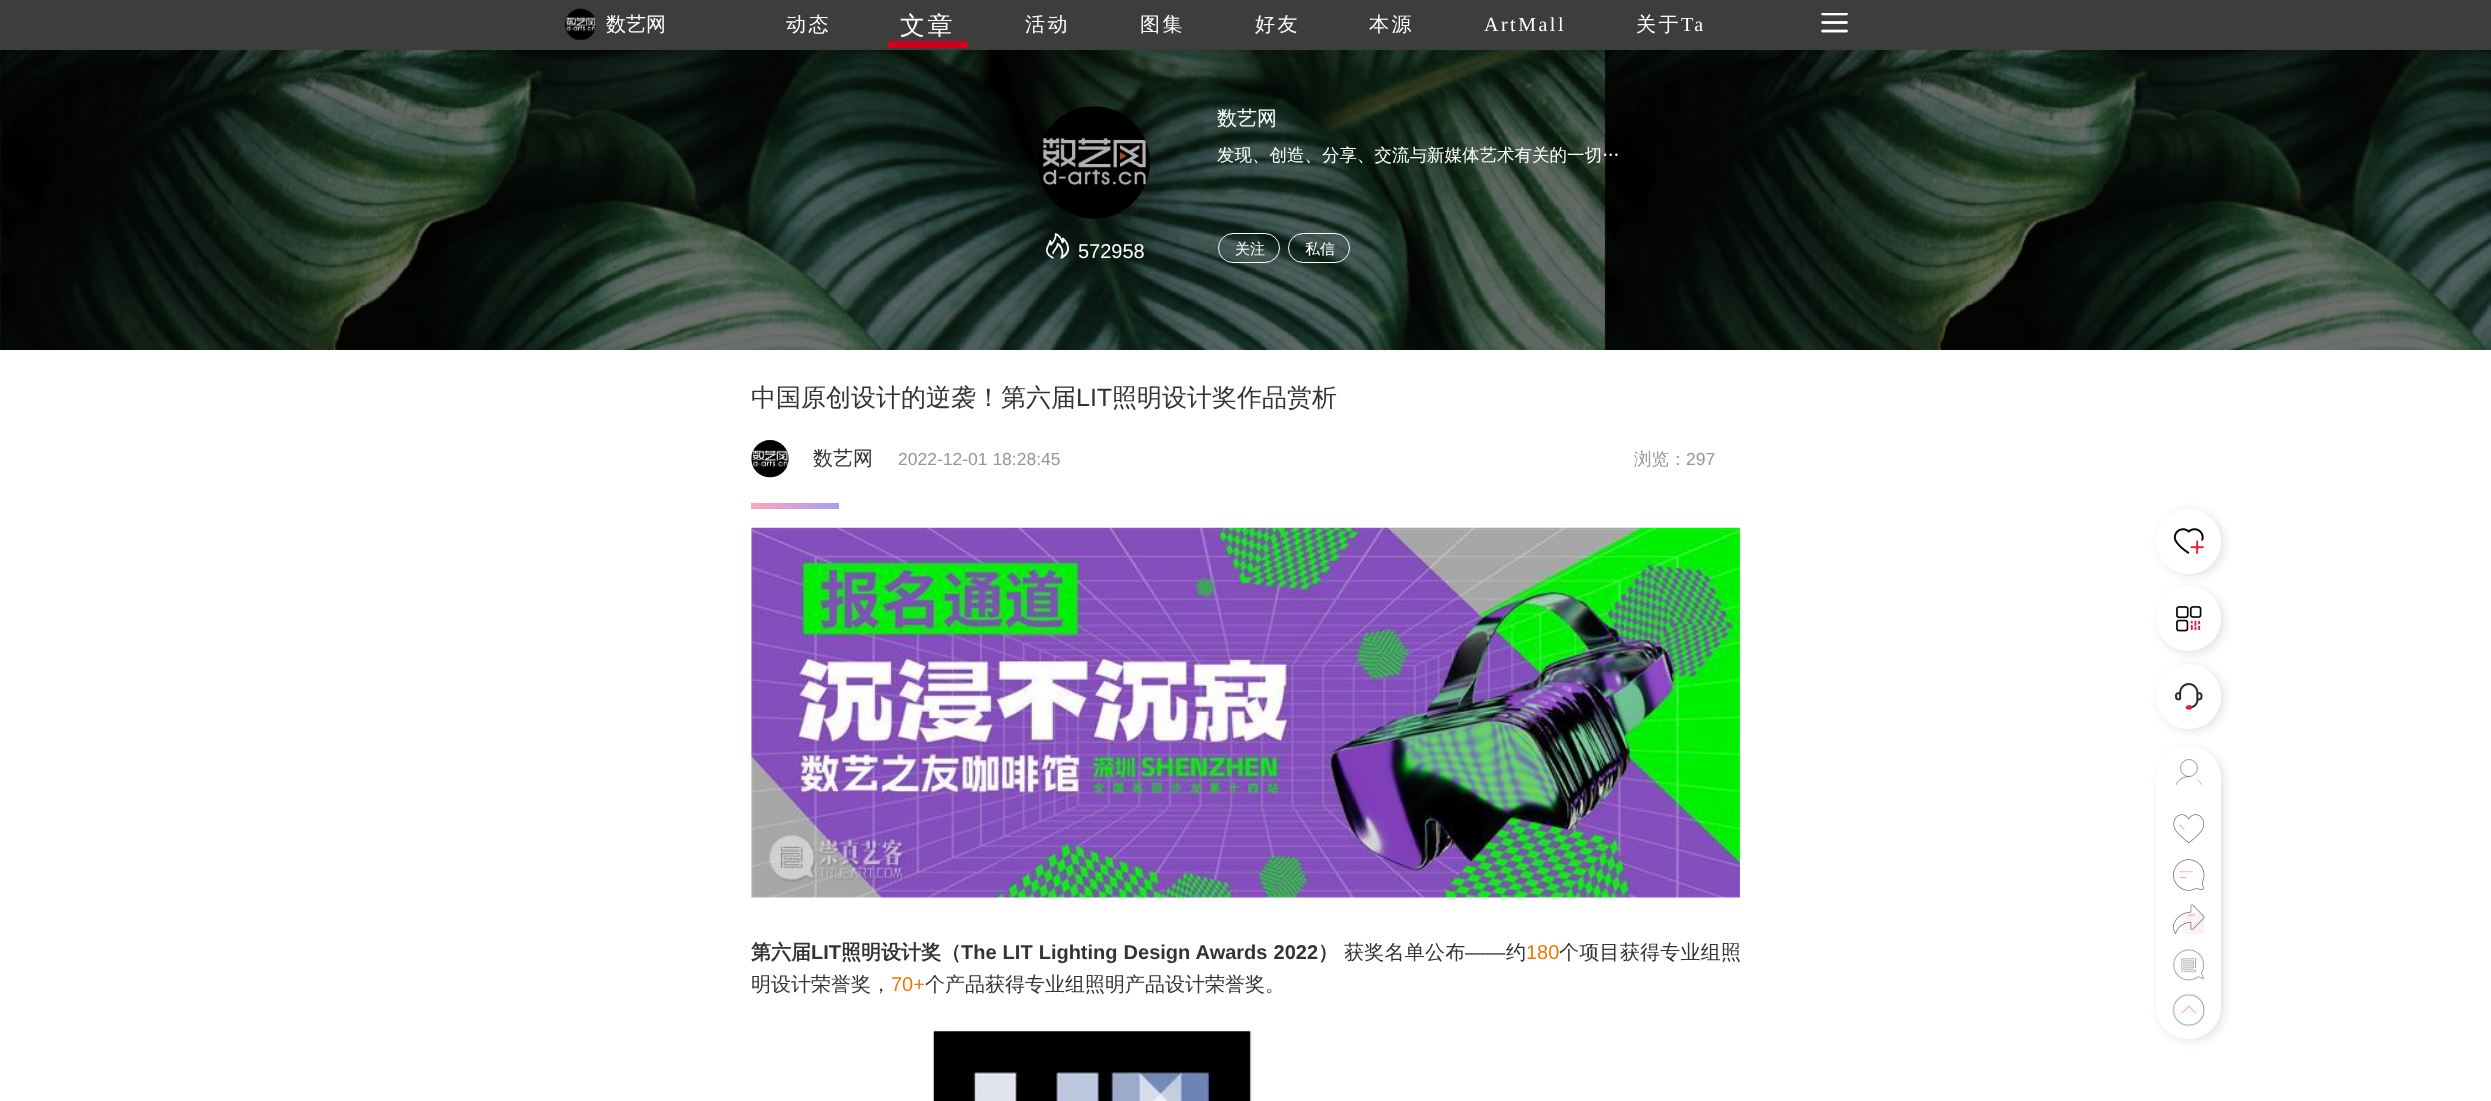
(async () => {
    const canvas = document.querySelector("canvas");
    canvas.width = 2491;
    canvas.height = 1101;
    const context = canvas.getContext("2d");
    context.miterLimit = 4;
    context.fontKerning = "normal";
    function write(s, x, y, font, color) {
        context.font = font;
        context.fillStyle = color;
        context.fillText(s, x, y);
    }
    function block(x, y, w, h, color) {
        context.fillStyle = color;
        context.fillRect(x, y, w, h);
    }
    function card(x, y, w, h, r, color) {
        context.fillStyle = color;
        context.beginPath();
        context.roundRect(x, y, w, h, r);
        context.fill();
    }
    async function photo(src, x, y, w, h) {
        const img = new Image();
        img.src = src;
        await img.decode();
        context.drawImage(img, x, y, w, h);
    }
    let gradient;

    block(0, 0, 2491, 1101, "rgb(255, 255, 255)");
    block(0, 0, 2491, 50, "rgb(61, 61, 61)");
    await photo("media/1.png", 565, 8, 31, 32);
    write("数艺网", 606, 31, "500 20px WenQuanYi Zen Hei", "rgb(255, 255, 255)");
    context.letterSpacing = "2.5px";
    write("动态", 786, 31, "500 20px WenQuanYi Zen Hei", "rgb(255, 255, 255)");
    write("文章", 900, 34, "500 25px WenQuanYi Zen Hei", "rgb(255, 255, 255)");
    block(888, 41, 80, 7, "rgb(208, 2, 27)");
    write("活动", 1025, 31, "500 20px WenQuanYi Zen Hei", "rgb(255, 255, 255)");
    write("图集", 1140, 31, "500 20px WenQuanYi Zen Hei", "rgb(255, 255, 255)");
    write("好友", 1255, 31, "500 20px WenQuanYi Zen Hei", "rgb(255, 255, 255)");
    write("本源", 1369, 31, "500 20px WenQuanYi Zen Hei", "rgb(255, 255, 255)");
    write("ArtMall", 1484, 31, "20px Liberation Serif", "rgb(255, 255, 255)");
    write("关于", 1636, 31, "500 20px WenQuanYi Zen Hei", "rgb(255, 255, 255)");
    write("Ta", 1681, 31, "20px Liberation Serif", "rgb(255, 255, 255)");
    await photo("media/2.png", 1821, 13, 27, 20);
    context.save();
    context.beginPath();
    context.moveTo(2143, 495);
    context.lineTo(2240, 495);
    context.lineTo(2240, 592);
    context.lineTo(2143, 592);
    context.closePath();
    context.moveTo(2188.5, 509);
    context.bezierCurveTo(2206.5, 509, 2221, 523.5, 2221, 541.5);
    context.bezierCurveTo(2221, 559.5, 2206.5, 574, 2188.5, 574);
    context.bezierCurveTo(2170.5, 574, 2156, 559.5, 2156, 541.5);
    context.bezierCurveTo(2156, 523.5, 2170.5, 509, 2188.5, 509);
    context.closePath();
    context.clip("evenodd");
    context.fillStyle = "rgba(105, 105, 105, 0.2)";
    context.filter = "blur(5px)";
    context.beginPath();
    context.roundRect(2159, 511, 65, 65, 32.5);
    context.fill();
    context.filter = "none";
    context.restore();
    context.fillStyle = "rgba(255, 255, 255, 0.8)";
    context.beginPath();
    context.arc(2188.5, 541.5, 32.5, 0, Math.PI * 2);
    context.fill();
    await photo("media/3.png", 2173, 528, 31, 26);
    context.save();
    context.beginPath();
    context.moveTo(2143, 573);
    context.lineTo(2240, 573);
    context.lineTo(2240, 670);
    context.lineTo(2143, 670);
    context.closePath();
    context.moveTo(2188.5, 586);
    context.bezierCurveTo(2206.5, 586, 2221, 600.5, 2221, 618.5);
    context.bezierCurveTo(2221, 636.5, 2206.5, 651, 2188.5, 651);
    context.bezierCurveTo(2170.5, 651, 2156, 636.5, 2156, 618.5);
    context.bezierCurveTo(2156, 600.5, 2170.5, 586, 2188.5, 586);
    context.closePath();
    context.clip("evenodd");
    context.fillStyle = "rgba(105, 105, 105, 0.2)";
    context.filter = "blur(5px)";
    context.beginPath();
    context.roundRect(2159, 589, 65, 65, 32.5);
    context.fill();
    context.filter = "none";
    context.restore();
    context.beginPath();
    context.arc(2188.5, 618.5, 32.5, 0, Math.PI * 2);
    context.fill();
    await photo("media/4.png", 2176, 606, 26, 26);
    context.save();
    context.beginPath();
    context.moveTo(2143, 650);
    context.lineTo(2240, 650);
    context.lineTo(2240, 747);
    context.lineTo(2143, 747);
    context.closePath();
    context.moveTo(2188.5, 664);
    context.bezierCurveTo(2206.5, 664, 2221, 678.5, 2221, 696.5);
    context.bezierCurveTo(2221, 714.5, 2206.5, 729, 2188.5, 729);
    context.bezierCurveTo(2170.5, 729, 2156, 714.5, 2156, 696.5);
    context.bezierCurveTo(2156, 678.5, 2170.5, 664, 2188.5, 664);
    context.closePath();
    context.clip("evenodd");
    context.fillStyle = "rgba(105, 105, 105, 0.2)";
    context.filter = "blur(5px)";
    context.beginPath();
    context.roundRect(2159, 666, 65, 65, 32.5);
    context.fill();
    context.filter = "none";
    context.restore();
    context.beginPath();
    context.arc(2188.5, 696.5, 32.5, 0, Math.PI * 2);
    context.fill();
    await photo("media/5.png", 2175, 683, 28, 27);
    context.save();
    context.beginPath();
    context.moveTo(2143, 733);
    context.lineTo(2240, 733);
    context.lineTo(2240, 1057);
    context.lineTo(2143, 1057);
    context.closePath();
    context.moveTo(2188.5, 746);
    context.bezierCurveTo(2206.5, 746, 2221, 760.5, 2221, 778.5);
    context.lineTo(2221, 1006.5);
    context.bezierCurveTo(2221, 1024.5, 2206.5, 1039, 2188.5, 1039);
    context.bezierCurveTo(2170.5, 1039, 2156, 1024.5, 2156, 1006.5);
    context.lineTo(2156, 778.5);
    context.bezierCurveTo(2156, 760.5, 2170.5, 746, 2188.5, 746);
    context.closePath();
    context.clip("evenodd");
    context.fillStyle = "rgba(105, 105, 105, 0.2)";
    context.filter = "blur(5px)";
    context.beginPath();
    context.roundRect(2159, 749, 65, 292, 32.5);
    context.fill();
    context.filter = "none";
    context.restore();
    card(2156, 746, 65, 293, 32.5, "rgba(255, 255, 255, 0.8)");
    context.beginPath();
    context.arc(2189, 768, 8.5, 0, Math.PI * 2);
    context.strokeStyle = "rgb(51, 51, 51)";
    context.lineWidth = 0.5;
    context.stroke();
    context.save();
    context.beginPath();
    context.roundRect(2173, 759, 32, 32, 16);
    context.clip();
    context.beginPath();
    context.moveTo(2189, 776.5);
    context.bezierCurveTo(2181, 776.5, 2175, 782.5, 2175, 790);
    context.lineCap = "round";
    context.lineJoin = "round";
    context.stroke();
    context.beginPath();
    context.moveTo(2202.5, 790);
    context.bezierCurveTo(2202.5, 786, 2201, 782.5, 2198, 780);
    context.strokeStyle = "rgb(240, 71, 97)";
    context.stroke();
    context.restore();
    await photo("media/6.png", 2173, 814, 31, 29);
    await photo("media/7.png", 2173, 859, 32, 32);
    await photo("media/8.png", 2173, 904, 32, 30);
    await photo("media/9.png", 2173, 949, 32, 32);
    await photo("media/10.png", 2172, 993, 33, 34);
    await photo("media/11.png", 0, 50, 2491, 300);
    await photo("media/12.png", 1038, 106, 112, 113);
    await photo("media/13.png", 1046, 233, 23, 26);
    context.letterSpacing = "0px";
    write("572958", 1078, 258, "20px Liberation Sans", "rgb(255, 255, 255)");
    write("数艺网", 1217, 125, "500 20px WenQuanYi Zen Hei", "rgb(255, 255, 255)");
    write("发现、创造、分享、交流与新媒体艺术有关的一切…", 1217, 161, "500 17.5px WenQuanYi Zen Hei", "rgb(255, 255, 255)");
    context.beginPath();
    context.roundRect(1218.5, 233.5, 61, 29, 14.5);
    context.strokeStyle = "rgb(255, 255, 255)";
    context.lineWidth = 1;
    context.stroke();
    write("关注", 1235, 254, "500 15px WenQuanYi Zen Hei", "rgb(255, 255, 255)");
    context.beginPath();
    context.roundRect(1288.5, 233.5, 61, 29, 14.5);
    context.stroke();
    write("私信", 1305, 254, "500 15px WenQuanYi Zen Hei", "rgb(255, 255, 255)");
    write("中国原创设计的逆袭！第六届", 751, 406, "500 25px WenQuanYi Zen Hei", "rgb(51, 51, 51)");
    write("LIT", 1076, 406, "25px Liberation Sans", "rgb(51, 51, 51)");
    write("照明设计奖作品赏析", 1112, 406, "500 25px WenQuanYi Zen Hei", "rgb(51, 51, 51)");
    await photo("media/14.png", 751, 440, 38, 38);
    write("数艺网", 813, 465, "500 20px WenQuanYi Zen Hei", "rgb(51, 51, 51)");
    write("2022-12-01 18:28:45", 898, 465, "17.5px Liberation Sans", "rgb(150, 150, 150)");
    write("浏览：", 1634, 465, "500 17.5px WenQuanYi Zen Hei", "rgb(150, 150, 150)");
    write("297", 1686, 465, "17.5px Liberation Sans", "rgb(150, 150, 150)");
    gradient = context.createLinearGradient(751, 506, 839, 506);
    gradient.addColorStop(0, "rgb(255, 166, 187)");
    gradient.addColorStop(1, "rgb(165, 158, 244)");
    context.fillStyle = gradient;
    context.fillRect(751, 503, 88, 6);
    await photo("media/15.png", 751, 527, 989, 371);
    write("第六届", 751, 959, "bold 20px WenQuanYi Zen Hei", "rgb(51, 51, 51)");
    write("LIT", 811, 959, "bold 20px Liberation Sans", "rgb(51, 51, 51)");
    write("照明设计奖（", 841, 959, "bold 20px WenQuanYi Zen Hei", "rgb(51, 51, 51)");
    context.wordSpacing = "0.5px";
    write("The LIT Lighting Design Awards 2022", 961, 959, "bold 20px Liberation Sans", "rgb(51, 51, 51)");
    context.wordSpacing = "0px";
    write("）", 1318, 959, "bold 20px WenQuanYi Zen Hei", "rgb(51, 51, 51)");
    context.letterSpacing = "0.25px";
    write("获奖名单公布", 1344, 959, "500 20px WenQuanYi Zen Hei", "rgb(51, 51, 51)");
    write("——", 1465, 959, "20px Liberation Sans", "rgb(51, 51, 51)");
    write("约", 1506, 959, "500 20px WenQuanYi Zen Hei", "rgb(51, 51, 51)");
    context.letterSpacing = "0px";
    write("180", 1526, 959, "20px Liberation Sans", "rgb(238, 120, 0)");
    context.letterSpacing = "0.25px";
    write("个项目获得专业组照", 1559, 959, "500 20px WenQuanYi Zen Hei", "rgb(51, 51, 51)");
    context.letterSpacing = "0px";
    write("明设计荣誉奖，", 751, 991, "500 20px WenQuanYi Zen Hei", "rgb(51, 51, 51)");
    write("70+", 891, 991, "20px Liberation Sans", "rgb(238, 120, 0)");
    write("个产品获得专业组照明产品设计荣誉奖。", 925, 991, "500 20px WenQuanYi Zen Hei", "rgb(51, 51, 51)");
    await photo("media/16.png", 933, 1031, 319, 70);
})();
